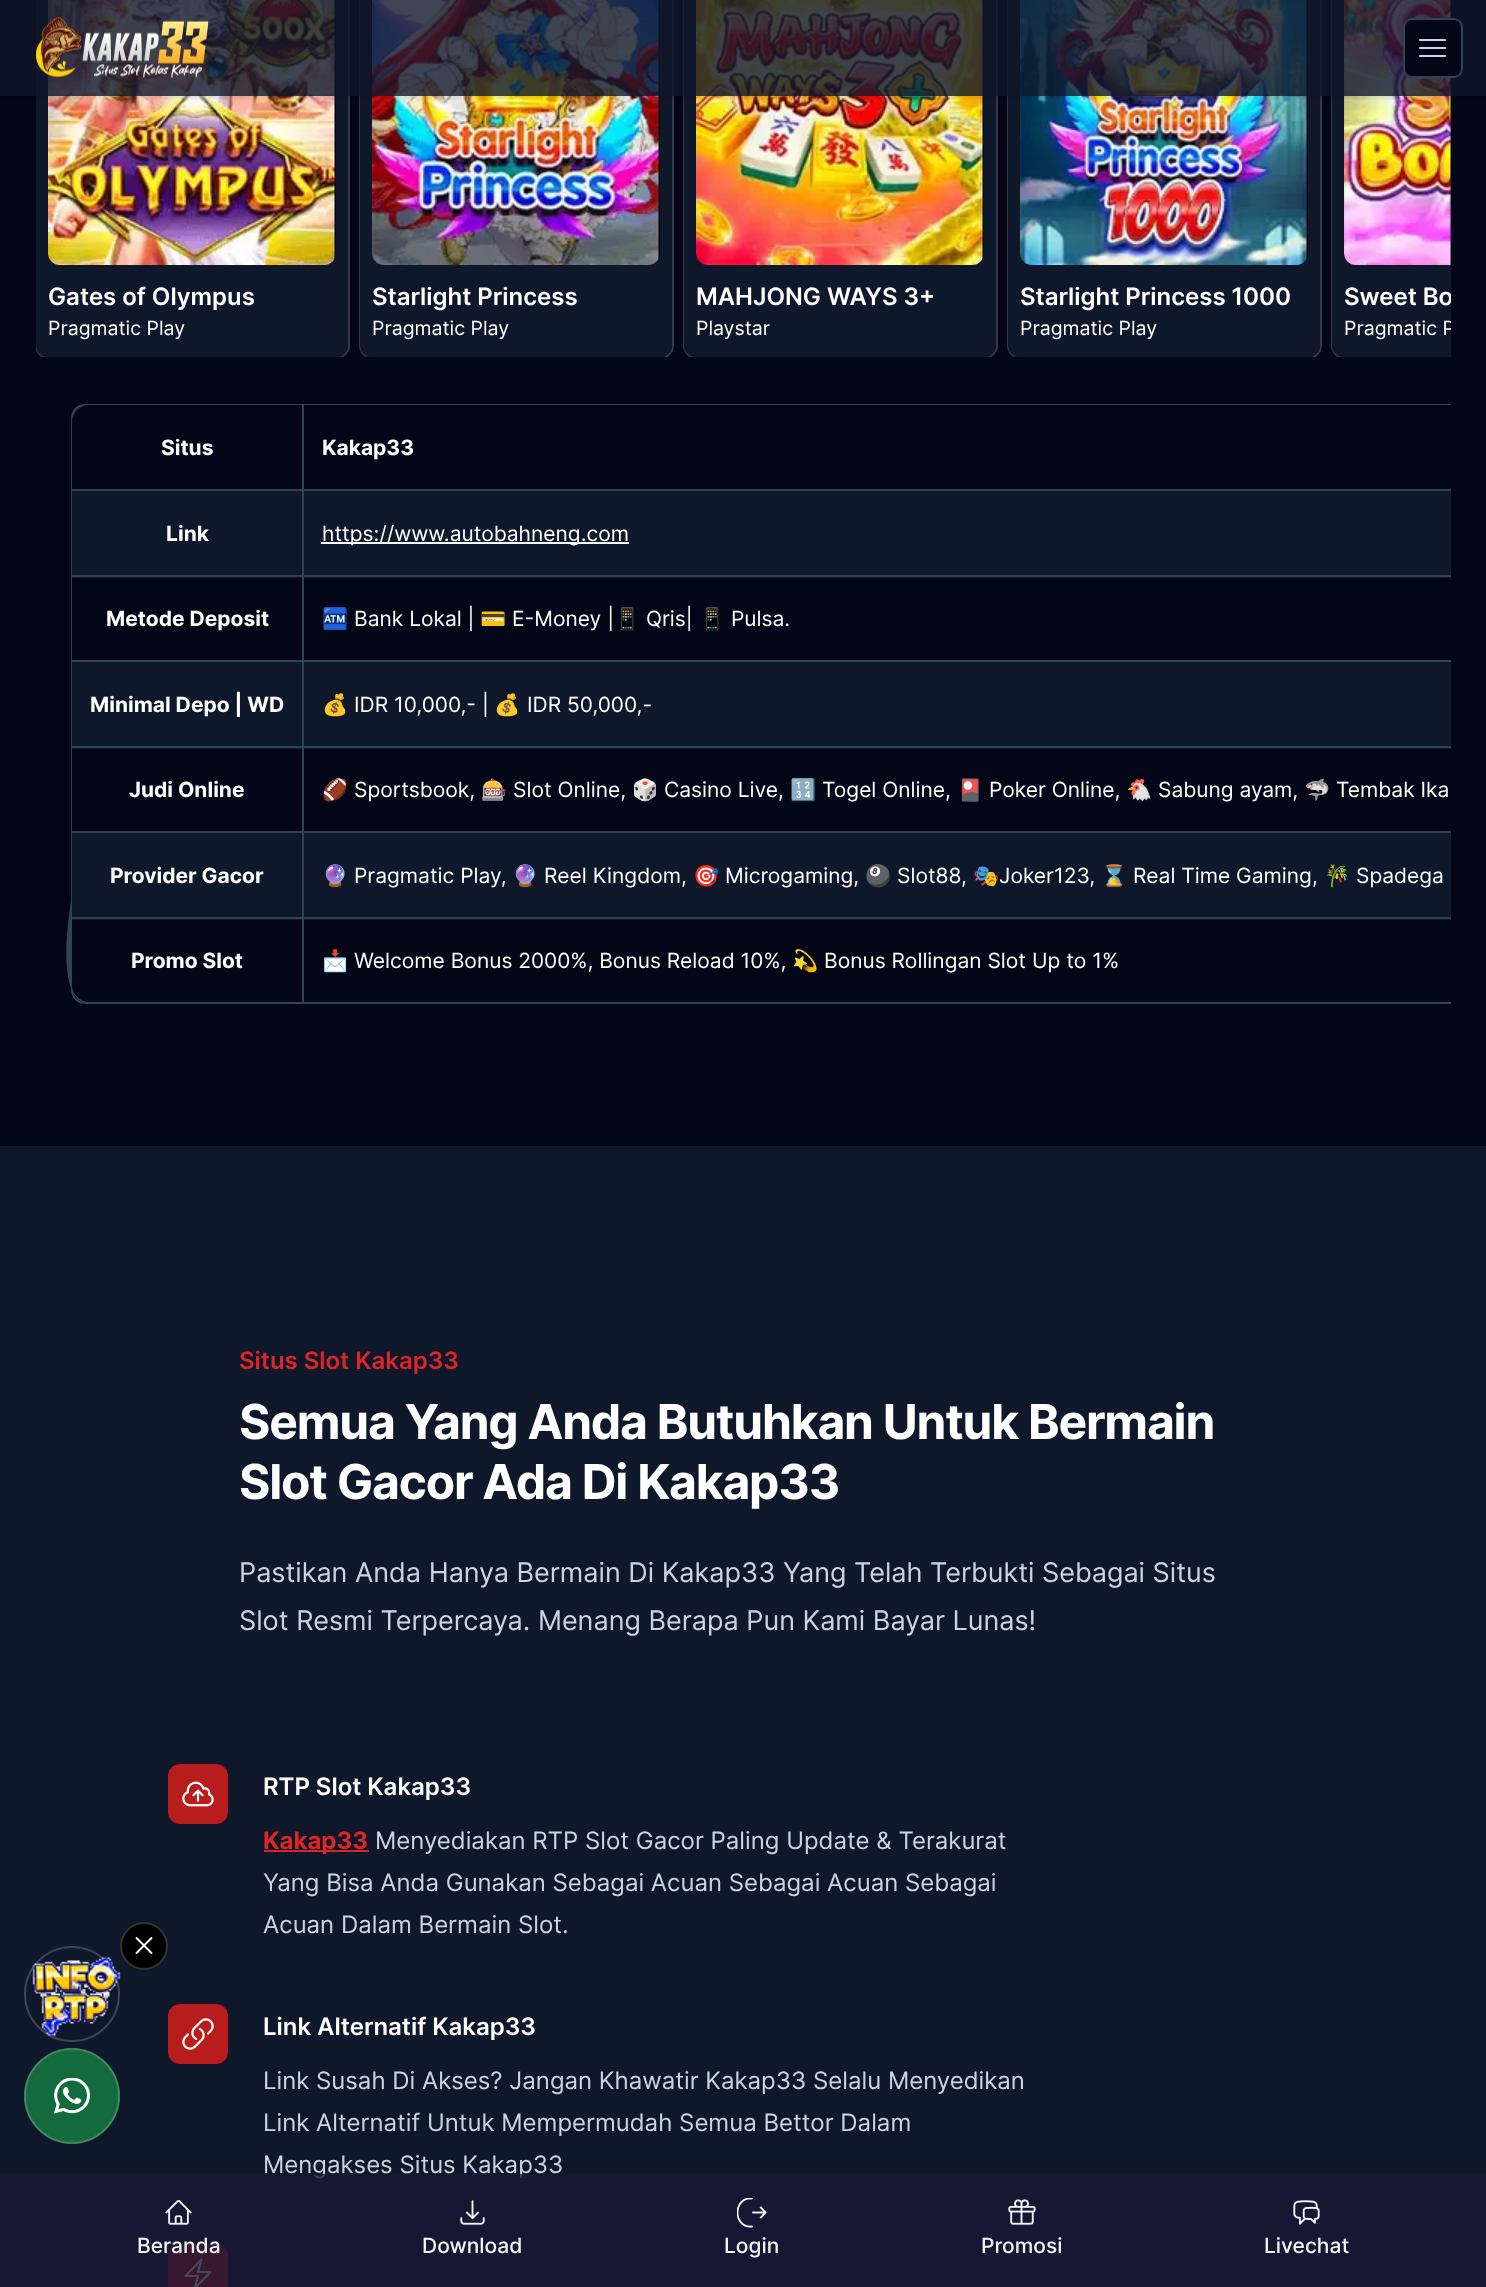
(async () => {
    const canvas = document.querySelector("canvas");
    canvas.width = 1486;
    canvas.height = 2287;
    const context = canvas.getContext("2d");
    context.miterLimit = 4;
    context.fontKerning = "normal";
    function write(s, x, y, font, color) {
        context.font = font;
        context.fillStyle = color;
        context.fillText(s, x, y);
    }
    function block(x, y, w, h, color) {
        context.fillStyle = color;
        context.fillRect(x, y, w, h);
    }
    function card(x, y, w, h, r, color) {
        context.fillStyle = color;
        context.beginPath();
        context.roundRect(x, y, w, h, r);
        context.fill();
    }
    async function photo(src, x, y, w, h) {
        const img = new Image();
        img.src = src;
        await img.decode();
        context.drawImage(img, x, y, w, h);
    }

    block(0, 0, 1486, 2287, "rgb(2, 6, 23)");
    context.save();
    context.beginPath();
    context.rect(36, 0, 1415, 357);
    context.clip();
    context.beginPath();
    context.roundRect(36, -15, 313, 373, 13);
    context.strokeStyle = "rgb(53, 56, 69)";
    context.lineWidth = 2;
    context.stroke();
    context.restore();
    card(36, -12, 312, 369, 12, "rgb(15, 23, 42)");
    await photo("media/2.png", 48, 0, 288, 265);
    context.save();
    context.beginPath();
    context.rect(36, 0, 1415, 357);
    context.clip();
    context.beginPath();
    context.roundRect(360, -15, 313, 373, 13);
    context.strokeStyle = "rgb(53, 56, 69)";
    context.lineWidth = 2;
    context.stroke();
    context.restore();
    card(360, -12, 312, 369, 12, "rgb(15, 23, 42)");
    await photo("media/3.png", 372, 0, 288, 265);
    context.save();
    context.beginPath();
    context.rect(36, 0, 1415, 357);
    context.clip();
    context.beginPath();
    context.roundRect(684, -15, 313, 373, 13);
    context.strokeStyle = "rgb(53, 56, 69)";
    context.lineWidth = 2;
    context.stroke();
    context.restore();
    card(684, -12, 312, 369, 12, "rgb(15, 23, 42)");
    await photo("media/4.png", 696, 0, 288, 265);
    context.save();
    context.beginPath();
    context.rect(36, 0, 1415, 357);
    context.clip();
    context.beginPath();
    context.roundRect(1008, -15, 313, 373, 13);
    context.strokeStyle = "rgb(53, 56, 69)";
    context.lineWidth = 2;
    context.stroke();
    context.restore();
    card(1008, -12, 312, 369, 12, "rgb(15, 23, 42)");
    await photo("media/5.png", 1020, 0, 288, 265);
    context.save();
    context.beginPath();
    context.rect(36, 0, 1415, 357);
    context.clip();
    context.beginPath();
    context.roundRect(1332, -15, 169, 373, 13);
    context.strokeStyle = "rgb(53, 56, 69)";
    context.lineWidth = 2;
    context.stroke();
    context.restore();
    context.beginPath();
    context.moveTo(1344, -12);
    context.lineTo(1451, -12);
    context.lineTo(1451, 357);
    context.lineTo(1344, 357);
    context.bezierCurveTo(1337.5, 357, 1332, 351.5, 1332, 345);
    context.lineTo(1332, 0);
    context.bezierCurveTo(1332, -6.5, 1337.5, -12, 1344, -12);
    context.closePath();
    context.fill();
    await photo("media/6.png", 1344, 0, 107, 265);
    context.save();
    context.beginPath();
    context.rect(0, 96, 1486, 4);
    context.clip();
    context.fillStyle = "rgba(0, 0, 0, 0.1)";
    context.filter = "blur(2px)";
    context.beginPath();
    context.rect(0, 2, 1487, 96);
    context.fill();
    context.filter = "none";
    context.restore();
    block(0, 0, 1486, 96, "rgba(15, 23, 42, 0.8)");
    await photo("media/1.png", 36, 17, 173, 61);
    context.fillStyle = "rgb(2, 6, 23)";
    context.beginPath();
    context.roundRect(1404, 19, 58, 58, 8);
    context.fill();
    context.strokeStyle = "rgb(51, 65, 85)";
    context.lineWidth = 2;
    context.stroke();
    context.beginPath();
    context.moveTo(1420, 40);
    context.lineTo(1445, 40);
    context.moveTo(1420, 48);
    context.lineTo(1445, 48);
    context.moveTo(1420, 56);
    context.lineTo(1445, 56);
    context.strokeStyle = "rgb(203, 213, 225)";
    context.lineWidth = 2.2;
    context.lineCap = "round";
    context.lineJoin = "round";
    context.stroke();
    write("Gates of Olympus", 48, 305, "600 24px Inter", "rgb(255, 255, 255)");
    write("Pragmatic Play", 48, 335, "19.5px Inter", "rgb(255, 255, 255)");
    write("Starlight Princess", 372, 305, "600 24px Inter", "rgb(255, 255, 255)");
    write("Pragmatic Play", 372, 335, "19.5px Inter", "rgb(255, 255, 255)");
    write("MAHJONG WAYS 3+", 696, 305, "600 24px Inter", "rgb(255, 255, 255)");
    write("Playstar", 696, 335, "19.5px Inter", "rgb(255, 255, 255)");
    write("Starlight Princess 1000", 1020, 305, "600 24px Inter", "rgb(255, 255, 255)");
    write("Pragmatic Play", 1020, 335, "19.5px Inter", "rgb(255, 255, 255)");
    context.save();
    context.beginPath();
    context.rect(1344, 278, 107, 67);
    context.clip();
    write("Sweet Bo", 1344, 305, "600 24px Inter", "rgb(255, 255, 255)");
    write("Pragmatic P", 1344, 335, "19.5px Inter", "rgb(255, 255, 255)");
    context.restore();
    context.save();
    context.beginPath();
    context.rect(36, 393, 1415, 621);
    context.clip();
    context.beginPath();
    context.roundRect(72, 405, 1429, 598, 13);
    context.strokeStyle = "rgb(51, 65, 85)";
    context.lineWidth = 2;
    context.lineJoin = "miter";
    context.stroke();
    context.fillStyle = "rgb(51, 65, 85)";
    context.beginPath();
    context.moveTo(91, 406);
    context.bezierCurveTo(81, 406, 73, 414, 73, 424);
    context.lineTo(73, 984);
    context.bezierCurveTo(73, 994, 81, 1002, 91, 1002);
    context.lineTo(82, 1002);
    context.bezierCurveTo(54, 987, 72, 898, 72, 895);
    context.lineTo(72, 418);
    context.bezierCurveTo(72, 414, 78, 409, 80, 407);
    context.lineTo(85, 405);
    context.lineTo(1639, 405);
    context.lineTo(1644, 407);
    context.bezierCurveTo(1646, 409, 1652, 414, 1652, 418);
    context.lineTo(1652, 895);
    context.bezierCurveTo(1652, 898, 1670, 987, 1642, 1002);
    context.lineTo(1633, 1002);
    context.bezierCurveTo(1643, 1002, 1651, 994, 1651, 984);
    context.lineTo(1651, 424);
    context.bezierCurveTo(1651, 414, 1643, 406, 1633, 406);
    context.closePath();
    context.fill();
    context.restore();
    context.fillStyle = "rgb(15, 23, 42)";
    context.beginPath();
    context.roundRect(72, 405, 1379, 597, [18, 0, 0, 18]);
    context.fill();
    context.fillStyle = "rgb(2, 6, 23)";
    context.beginPath();
    context.roundRect(72, 405, 1379, 86, [18, 0, 0, 0]);
    context.fill();
    write("Situs", 161, 455, "bold 21px Inter", "rgb(255, 255, 255)");
    write("Kakap33", 322, 455, "bold 21px Inter", "rgb(255, 255, 255)");
    block(72, 489, 1379, 2, "rgb(51, 65, 85)");
    write("Link", 166, 541, "bold 21px Inter", "rgb(255, 255, 255)");
    block(321, 542, 308, 2, "rgb(255, 255, 255)");
    write("https://www.autobahneng.com", 322, 541, "21px Inter", "rgb(255, 255, 255)");
    block(72, 578, 1379, 82, "rgb(2, 6, 23)");
    block(72, 575, 1379, 2, "rgb(51, 65, 85)");
    write("Metode Deposit", 106, 626, "bold 21px Inter", "rgb(255, 255, 255)");
    write("🏧", 322, 626, "21px Noto Color Emoji", "rgb(255, 255, 255)");
    write("Bank Lokal |", 354, 626, "21px Inter", "rgb(255, 255, 255)");
    write("💳", 480, 626, "21px Noto Color Emoji", "rgb(255, 255, 255)");
    write("E-Money |", 512, 626, "21px Inter", "rgb(255, 255, 255)");
    write("📱", 614, 626, "21px Noto Color Emoji", "rgb(255, 255, 255)");
    write("Qris|", 646, 626, "21px Inter", "rgb(255, 255, 255)");
    write("📱", 699, 626, "21px Noto Color Emoji", "rgb(255, 255, 255)");
    write("Pulsa.", 731, 626, "21px Inter", "rgb(255, 255, 255)");
    block(72, 660, 1379, 2, "rgb(51, 65, 85)");
    write("Minimal Depo | WD", 90, 712, "bold 21px Inter", "rgb(255, 255, 255)");
    write("💰", 322, 712, "21px Noto Color Emoji", "rgb(255, 255, 255)");
    write("IDR 10,000,- |", 354, 712, "21px Inter", "rgb(255, 255, 255)");
    write("💰", 494, 712, "21px Noto Color Emoji", "rgb(255, 255, 255)");
    write("IDR 50,000,-", 527, 712, "21px Inter", "rgb(255, 255, 255)");
    block(72, 749, 1379, 82, "rgb(2, 6, 23)");
    block(72, 746, 1379, 2, "rgb(51, 65, 85)");
    write("Judi Online", 129, 797, "bold 21px Inter", "rgb(255, 255, 255)");
    write("🏈", 322, 797, "21px Noto Color Emoji", "rgb(255, 255, 255)");
    write("Sportsbook,", 354, 797, "21px Inter", "rgb(255, 255, 255)");
    write("🎰", 481, 797, "21px Noto Color Emoji", "rgb(255, 255, 255)");
    write("Slot Online,", 513, 797, "21px Inter", "rgb(255, 255, 255)");
    write("🎲", 632, 797, "21px Noto Color Emoji", "rgb(255, 255, 255)");
    write("Casino Live,", 664, 797, "21px Inter", "rgb(255, 255, 255)");
    write("🔢", 790, 797, "21px Noto Color Emoji", "rgb(255, 255, 255)");
    write("Togel Online,", 822, 797, "21px Inter", "rgb(255, 255, 255)");
    write("🎴", 957, 797, "21px Noto Color Emoji", "rgb(255, 255, 255)");
    write("Poker Online,", 989, 797, "21px Inter", "rgb(255, 255, 255)");
    write("🐔", 1126, 797, "21px Noto Color Emoji", "rgb(255, 255, 255)");
    write("Sabung ayam,", 1158, 797, "21px Inter", "rgb(255, 255, 255)");
    write("🦈", 1304, 797, "21px Noto Color Emoji", "rgb(255, 255, 255)");
    write("Tembak Ika", 1336, 797, "21px Inter", "rgb(255, 255, 255)");
    block(72, 831, 1379, 2, "rgb(51, 65, 85)");
    write("Provider Gacor", 110, 883, "bold 21px Inter", "rgb(255, 255, 255)");
    write("🔮", 322, 883, "21px Noto Color Emoji", "rgb(255, 255, 255)");
    write("Pragmatic Play,", 354, 883, "21px Inter", "rgb(255, 255, 255)");
    write("🔮", 512, 883, "21px Noto Color Emoji", "rgb(255, 255, 255)");
    write("Reel Kingdom,", 544, 883, "21px Inter", "rgb(255, 255, 255)");
    write("🎯", 693, 883, "21px Noto Color Emoji", "rgb(255, 255, 255)");
    write("Microgaming,", 725, 883, "21px Inter", "rgb(255, 255, 255)");
    write("🎱", 865, 883, "21px Noto Color Emoji", "rgb(255, 255, 255)");
    write("Slot88,", 897, 883, "21px Inter", "rgb(255, 255, 255)");
    write("🎭", 973, 883, "21px Noto Color Emoji", "rgb(255, 255, 255)");
    write("Joker123,", 999, 883, "21px Inter", "rgb(255, 255, 255)");
    write("⌛", 1101, 883, "21px Noto Color Emoji", "rgb(255, 255, 255)");
    write("Real Time Gaming,", 1133, 883, "21px Inter", "rgb(255, 255, 255)");
    write("🎋", 1324, 883, "21px Noto Color Emoji", "rgb(255, 255, 255)");
    write("Spadega", 1356, 883, "21px Inter", "rgb(255, 255, 255)");
    context.fillStyle = "rgb(2, 6, 23)";
    context.beginPath();
    context.roundRect(72, 920, 1379, 82, [0, 0, 0, 18]);
    context.fill();
    block(72, 917, 1379, 2, "rgb(51, 65, 85)");
    write("Promo Slot", 131, 968, "bold 21px Inter", "rgb(255, 255, 255)");
    block(302, 405, 2, 597, "rgb(51, 65, 85)");
    write("📩", 322, 968, "21px Noto Color Emoji", "rgb(255, 255, 255)");
    write("Welcome Bonus 2000%, Bonus Reload 10%,", 354, 968, "21px Inter", "rgb(255, 255, 255)");
    write("💫", 792, 968, "21px Noto Color Emoji", "rgb(255, 255, 255)");
    write("Bonus Rollingan Slot Up to 1%", 824, 968, "21px Inter", "rgb(255, 255, 255)");
    block(0, 1146, 1486, 1141, "rgb(15, 23, 42)");
    write("Situs Slot Kakap33", 239, 1369, "600 24px Inter", "rgb(220, 38, 38)");
    context.letterSpacing = "-1.2px";
    write("Semua Yang Anda Butuhkan Untuk Bermain", 239, 1439, "bold 48px Inter", "rgb(255, 255, 255)");
    write("Slot Gacor Ada Di Kakap33", 239, 1499, "bold 48px Inter", "rgb(255, 255, 255)");
    context.letterSpacing = "0px";
    write("Pastikan Anda Hanya Bermain Di Kakap33 Yang Telah Terbukti Sebagai Situs", 239, 1582, "27px Inter", "rgb(203, 213, 225)");
    write("Slot Resmi Terpercaya. Menang Berapa Pun Kami Bayar Lunas!", 239, 1630, "27px Inter", "rgb(203, 213, 225)");
    card(168, 1764, 60, 60, 12, "rgb(185, 28, 28)");
    await photo("media/7.png", 182, 1781, 32, 26);
    write("RTP Slot Kakap33", 263, 1795, "600 24px Inter", "rgb(255, 255, 255)");
    block(264, 1850, 105, 2, "rgb(220, 38, 38)");
    write("Kakap33", 263, 1849, "bold 24px Inter", "rgb(220, 38, 38)");
    write("Menyediakan RTP Slot Gacor Paling Update & Terakurat", 375, 1849, "24px Inter", "rgb(203, 213, 225)");
    write("Yang Bisa Anda Gunakan Sebagai Acuan Sebagai Acuan Sebagai", 263, 1891, "24px Inter", "rgb(203, 213, 225)");
    write("Acuan Dalam Bermain Slot.", 263, 1933, "24px Inter", "rgb(203, 213, 225)");
    card(168, 2004, 60, 60, 12, "rgb(185, 28, 28)");
    await photo("media/8.png", 182, 2018, 32, 32);
    write("Link Alternatif Kakap33", 263, 2035, "600 24px Inter", "rgb(255, 255, 255)");
    write("Link Susah Di Akses? Jangan Khawatir Kakap33 Selalu Menyedikan", 263, 2089, "24px Inter", "rgb(203, 213, 225)");
    write("Link Alternatif Untuk Mempermudah Semua Bettor Dalam", 263, 2131, "24px Inter", "rgb(203, 213, 225)");
    write("Mengakses Situs Kakap33", 263, 2173, "24px Inter", "rgb(203, 213, 225)");
    card(168, 2244, 60, 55, 12, "rgb(185, 28, 28)");
    context.beginPath();
    context.moveTo(185.5, 2276);
    context.lineTo(201.5, 2259.5);
    context.lineTo(198, 2272);
    context.lineTo(210.5, 2272);
    context.lineTo(194.5, 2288.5);
    context.lineTo(198, 2276);
    context.closePath();
    context.strokeStyle = "rgb(255, 255, 255)";
    context.stroke();
    context.beginPath();
    context.arc(72, 1994, 47, 0, Math.PI * 2);
    context.strokeStyle = "rgb(63, 69, 85)";
    context.lineWidth = 2;
    context.stroke();
    context.fillStyle = "rgb(0, 0, 0)";
    context.beginPath();
    context.arc(144, 1946, 24, 0, Math.PI * 2);
    context.fill();
    context.beginPath();
    context.arc(144, 1946, 23, 0, Math.PI * 2);
    context.strokeStyle = "rgba(255, 255, 255, 0.2)";
    context.stroke();
    await photo("media/9.png", 32, 1957, 89, 79);
    context.beginPath();
    context.moveTo(136.5, 1953);
    context.lineTo(151.5, 1938);
    context.moveTo(136.5, 1938);
    context.lineTo(151.5, 1953);
    context.strokeStyle = "rgb(255, 255, 255)";
    context.lineWidth = 1.9;
    context.stroke();
    context.fillStyle = "rgb(19, 107, 61)";
    context.beginPath();
    context.arc(72, 2096, 48, 0, Math.PI * 2);
    context.fill();
    context.beginPath();
    context.arc(72, 2096, 47, 0, Math.PI * 2);
    context.strokeStyle = "rgba(255, 255, 255, 0.2)";
    context.lineWidth = 2;
    context.stroke();
    await photo("media/10.png", 54, 2078, 36, 36);
    block(0, 2174, 1486, 113, "rgba(24, 24, 52, 0.8)");
    await photo("media/11.png", 165, 2200, 27, 25);
    write("Beranda", 137, 2253, "500 21px Inter", "rgb(241, 245, 249)");
    await photo("media/12.png", 460, 2200, 25, 25);
    write("Download", 422, 2253, "500 21px Inter", "rgb(241, 245, 249)");
    await photo("media/13.png", 737, 2198, 30, 30);
    write("Login", 724, 2253, "500 21px Inter", "rgb(241, 245, 249)");
    await photo("media/14.png", 1008, 2199, 28, 26);
    write("Promosi", 981, 2253, "500 21px Inter", "rgb(241, 245, 249)");
    await photo("media/15.png", 1293, 2200, 27, 25);
    write("Livechat", 1264, 2253, "500 21px Inter", "rgb(241, 245, 249)");
})();
